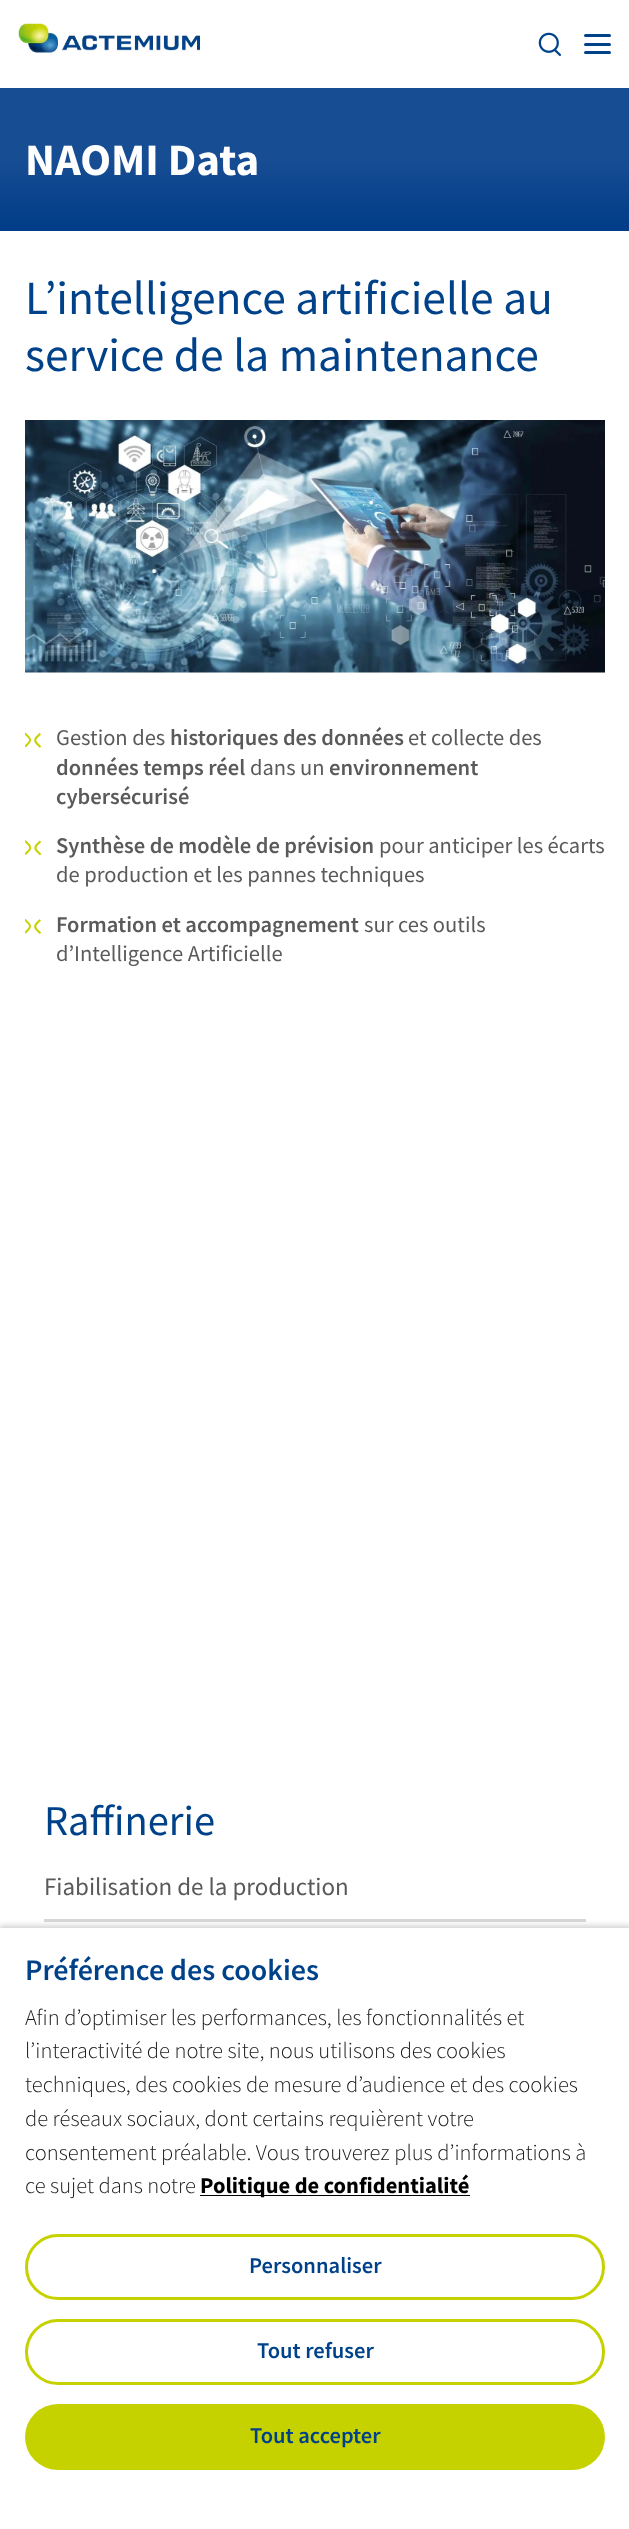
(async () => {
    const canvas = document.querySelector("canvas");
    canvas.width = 629;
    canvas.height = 2529;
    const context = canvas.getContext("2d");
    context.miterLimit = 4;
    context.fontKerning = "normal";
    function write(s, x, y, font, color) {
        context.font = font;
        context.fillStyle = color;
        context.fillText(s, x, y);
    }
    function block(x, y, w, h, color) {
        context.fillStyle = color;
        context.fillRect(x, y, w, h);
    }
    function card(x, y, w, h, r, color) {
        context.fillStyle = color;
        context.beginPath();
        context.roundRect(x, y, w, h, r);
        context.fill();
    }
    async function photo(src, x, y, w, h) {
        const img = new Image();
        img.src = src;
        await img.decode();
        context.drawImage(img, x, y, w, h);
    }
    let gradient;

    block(0, 0, 629, 2529, "rgb(255, 255, 255)");
    await photo("media/1.png", 18, 23, 182, 30);
    await photo("media/2.png", 538, 32, 23, 24);
    card(584, 43, 27, 3, 1.5, "rgb(0, 66, 137)");
    card(584, 34, 27, 3, 1.5, "rgb(0, 66, 137)");
    card(584, 51, 27, 3, 1.5, "rgb(0, 66, 137)");
    gradient = context.createLinearGradient(315, 87, 315, 231);
    gradient.addColorStop(0.5, "rgb(23, 77, 147)");
    gradient.addColorStop(1, "rgb(0, 60, 136)");
    context.fillStyle = gradient;
    context.fillRect(0, 88, 629, 143);
    write("NAOMI Data", 25, 175, "bold 45px Source Sans Pro", "rgb(255, 255, 255)");
    write("L’intelligence artificielle au", 25, 314, "47.5px Source Sans Pro", "rgb(0, 66, 137)");
    write("service de la maintenance", 25, 371, "47.5px Source Sans Pro", "rgb(0, 66, 137)");
    await photo("media/3.png", 25, 420, 580, 253);
    await photo("media/4.png", 25, 732, 17, 16);
    write("Gestion des", 56, 745, "22.5px Source Sans Pro", "rgb(90, 90, 90)");
    write("historiques des données", 170, 745, "600 22.5px Source Sans Pro", "rgb(90, 90, 90)");
    write("et collecte des", 408, 745, "22.5px Source Sans Pro", "rgb(90, 90, 90)");
    write("données temps réel", 56, 775, "600 22.5px Source Sans Pro", "rgb(90, 90, 90)");
    write("dans un", 250, 775, "22.5px Source Sans Pro", "rgb(90, 90, 90)");
    write("environnement", 329, 775, "600 22.5px Source Sans Pro", "rgb(90, 90, 90)");
    write("cybersécurisé", 56, 804, "600 22.5px Source Sans Pro", "rgb(90, 90, 90)");
    await photo("media/5.png", 25, 840, 17, 16);
    write("Synthèse de modèle de prévision", 56, 853, "600 22.5px Source Sans Pro", "rgb(90, 90, 90)");
    write("pour anticiper les écarts", 379, 853, "22.5px Source Sans Pro", "rgb(90, 90, 90)");
    write("de production et les pannes techniques", 56, 882, "22.5px Source Sans Pro", "rgb(90, 90, 90)");
    await photo("media/6.png", 25, 918, 17, 16);
    write("Formation et accompagnement", 56, 932, "600 22.5px Source Sans Pro", "rgb(90, 90, 90)");
    write("sur ces outils", 364, 932, "22.5px Source Sans Pro", "rgb(90, 90, 90)");
    write("d’Intelligence Artificielle", 56, 961, "22.5px Source Sans Pro", "rgb(90, 90, 90)");
    write("Raffinerie", 44, 1835, "42.5px Source Sans Pro", "rgb(0, 66, 137)");
    write("Fiabilisation de la production", 44, 1895, "25px Source Sans Pro", "rgb(90, 90, 90)");
    block(44, 1919, 542, 3, "rgb(216, 216, 216)");
    context.fillStyle = "rgba(0, 0, 0, 0.2)";
    context.filter = "blur(3px)";
    context.beginPath();
    context.rect(-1, 1926, 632, 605);
    context.fill();
    context.filter = "none";
    block(0, 1928, 629, 601, "rgb(255, 255, 255)");
    write("Préférence des cookies", 25, 1980, "600 30px Source Sans Pro", "rgb(0, 66, 137)");
    write("Afin d’optimiser les performances, les fonctionnalités et", 25, 2025, "300 22.5px Source Sans Pro", "rgb(24, 24, 24)");
    write("l’interactivité de notre site, nous utilisons des cookies", 25, 2058, "300 22.5px Source Sans Pro", "rgb(24, 24, 24)");
    write("techniques, des cookies de mesure d’audience et des cookies", 25, 2092, "300 22.5px Source Sans Pro", "rgb(24, 24, 24)");
    write("de réseaux sociaux, dont certains requièrent votre", 25, 2126, "300 22.5px Source Sans Pro", "rgb(24, 24, 24)");
    write("consentement préalable. Vous trouverez plus d’informations à", 25, 2160, "300 22.5px Source Sans Pro", "rgb(24, 24, 24)");
    write("ce sujet dans notre", 25, 2193, "300 22.5px Source Sans Pro", "rgb(24, 24, 24)");
    block(200, 2195, 270, 1, "rgb(0, 0, 0)");
    write("Politique de confidentialité", 200, 2193, "bold 22.5px Source Sans Pro", "rgb(0, 0, 0)");
    context.beginPath();
    context.roundRect(26.5, 2235.5, 577, 63, 31.5);
    context.strokeStyle = "rgb(198, 210, 0)";
    context.lineWidth = 3;
    context.stroke();
    write("Personnaliser", 249, 2273, "600 22.5px Source Sans Pro", "rgb(0, 66, 137)");
    context.beginPath();
    context.roundRect(26.5, 2320.5, 577, 63, 31.5);
    context.stroke();
    write("Tout refuser", 257, 2358, "600 22.5px Source Sans Pro", "rgb(0, 66, 137)");
    card(25, 2404, 580, 66, 33, "rgb(198, 210, 0)");
    write("Tout accepter", 250, 2443, "600 22.5px Source Sans Pro", "rgb(0, 66, 137)");
})();
